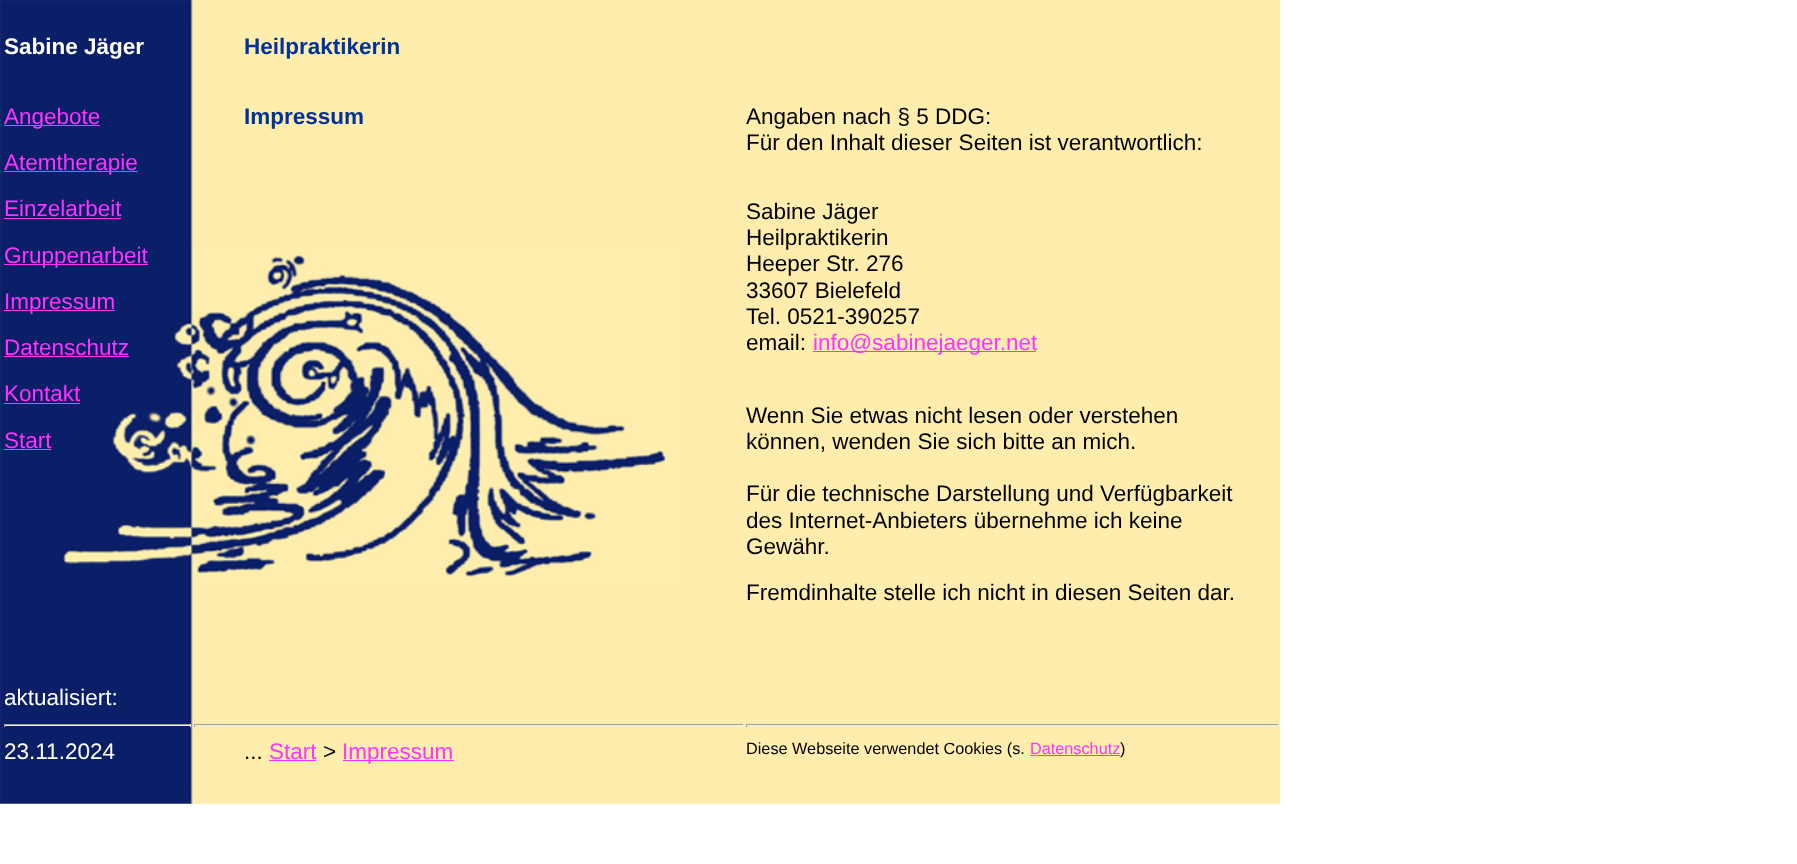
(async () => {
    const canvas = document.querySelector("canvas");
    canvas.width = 1797;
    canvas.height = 864;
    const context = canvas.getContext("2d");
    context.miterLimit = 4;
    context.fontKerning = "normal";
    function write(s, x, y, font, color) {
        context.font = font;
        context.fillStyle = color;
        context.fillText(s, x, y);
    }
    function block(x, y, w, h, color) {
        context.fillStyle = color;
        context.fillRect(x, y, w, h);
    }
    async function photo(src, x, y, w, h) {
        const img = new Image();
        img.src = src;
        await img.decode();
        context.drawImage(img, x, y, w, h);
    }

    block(0, 0, 1797, 864, "rgb(255, 255, 255)");
    await photo("media/1.png", 0, 0, 1280, 804);
    write("Sabine Jäger", 4, 54, "bold 22.5px Liberation Sans", "rgb(255, 255, 255)");
    write("Heilpraktikerin", 244, 54, "bold 22.5px Liberation Sans", "rgb(0, 51, 153)");
    block(4, 125, 96, 1, "rgb(255, 51, 255)");
    write("Angebote", 4, 124, "22.5px Liberation Sans", "rgb(255, 51, 255)");
    block(4, 171, 134, 1, "rgb(255, 51, 255)");
    write("Atemtherapie", 4, 170, "22.5px Liberation Sans", "rgb(255, 51, 255)");
    write("Einzelarbeit", 4, 216, "22.5px Liberation Sans", "rgb(255, 51, 255)");
    block(4, 218, 117, 1, "rgb(255, 51, 255)");
    block(4, 264, 144, 1, "rgb(255, 51, 255)");
    write("Gruppenarbeit", 4, 263, "22.5px Liberation Sans", "rgb(255, 51, 255)");
    block(4, 310, 111, 1, "rgb(255, 51, 255)");
    write("Impressum", 4, 309, "22.5px Liberation Sans", "rgb(255, 51, 255)");
    write("Datenschutz", 4, 355, "22.5px Liberation Sans", "rgb(255, 51, 255)");
    block(4, 356, 125, 1, "rgb(255, 51, 255)");
    write("Kontakt", 4, 401, "22.5px Liberation Sans", "rgb(255, 51, 255)");
    block(4, 403, 76, 1, "rgb(255, 51, 255)");
    write("Start", 4, 448, "22.5px Liberation Sans", "rgb(255, 51, 255)");
    block(4, 449, 47, 1, "rgb(255, 51, 255)");
    write("Impressum", 244, 124, "bold 22.5px Liberation Sans", "rgb(0, 51, 153)");
    write("Angaben nach § 5 DDG:", 746, 124, "22.5px Liberation Sans", "rgb(0, 0, 0)");
    write("Für den Inhalt dieser Seiten ist verantwortlich:", 746, 150, "22.5px Liberation Sans", "rgb(0, 0, 0)");
    write("Sabine Jäger", 746, 219, "22.5px Liberation Sans", "rgb(0, 0, 0)");
    write("Heilpraktikerin", 746, 245, "22.5px Liberation Sans", "rgb(0, 0, 0)");
    write("Heeper Str. 276", 746, 271, "22.5px Liberation Sans", "rgb(0, 0, 0)");
    write("33607 Bielefeld", 746, 298, "22.5px Liberation Sans", "rgb(0, 0, 0)");
    write("Tel. 0521-390257", 746, 324, "22.5px Liberation Sans", "rgb(0, 0, 0)");
    write("email:", 746, 350, "22.5px Liberation Sans", "rgb(0, 0, 0)");
    block(813, 351, 223, 1, "rgb(255, 51, 255)");
    write("info@sabinejaeger.net", 813, 350, "22.5px Liberation Sans", "rgb(255, 51, 255)");
    write("Wenn Sie etwas nicht lesen oder verstehen", 746, 423, "22.5px Liberation Sans", "rgb(0, 0, 0)");
    write("können, wenden Sie sich bitte an mich.", 746, 449, "22.5px Liberation Sans", "rgb(0, 0, 0)");
    write("Für die technische Darstellung und Verfügbarkeit", 746, 501, "22.5px Liberation Sans", "rgb(0, 0, 0)");
    write("des Internet-Anbieters übernehme ich keine", 746, 528, "22.5px Liberation Sans", "rgb(0, 0, 0)");
    write("Gewähr.", 746, 554, "22.5px Liberation Sans", "rgb(0, 0, 0)");
    write("Fremdinhalte stelle ich nicht in diesen Seiten dar.", 746, 600, "22.5px Liberation Sans", "rgb(0, 0, 0)");
    write("aktualisiert:", 4, 705, "22.5px Liberation Sans", "rgb(255, 255, 255)");
    block(4, 724, 187, 1, "rgb(159, 159, 159)");
    block(190, 724, 1, 3, "rgb(238, 238, 238)");
    block(4, 725, 187, 1, "rgb(238, 238, 238)");
    block(4, 724, 1, 3, "rgb(159, 159, 159)");
    block(194, 724, 550, 1, "rgb(159, 159, 159)");
    block(743, 724, 1, 3, "rgb(238, 238, 238)");
    block(194, 725, 550, 1, "rgb(238, 238, 238)");
    block(194, 724, 1, 3, "rgb(159, 159, 159)");
    block(746, 724, 533, 1, "rgb(159, 159, 159)");
    block(1278, 724, 1, 3, "rgb(238, 238, 238)");
    block(746, 725, 533, 1, "rgb(238, 238, 238)");
    block(746, 724, 1, 3, "rgb(159, 159, 159)");
    write("23.11.2024", 4, 759, "22.5px Liberation Sans", "rgb(255, 255, 255)");
    write("...", 244, 759, "22.5px Liberation Sans", "rgb(0, 0, 0)");
    block(269, 760, 47, 1, "rgb(255, 51, 255)");
    write("Start", 269, 759, "22.5px Liberation Sans", "rgb(255, 51, 255)");
    write(">", 323, 759, "22.5px Liberation Sans", "rgb(0, 0, 0)");
    block(343, 760, 111, 1, "rgb(255, 51, 255)");
    write("Impressum", 342, 759, "22.5px Liberation Sans", "rgb(255, 51, 255)");
    write("Diese Webseite verwendet Cookies (s.", 746, 754, "16.25px Liberation Sans", "rgb(0, 0, 0)");
    write("Datenschutz", 1030, 754, "16.25px Liberation Sans", "rgb(255, 51, 255)");
    write(")", 1120, 754, "16.25px Liberation Sans", "rgb(0, 0, 0)");
    block(1030, 755, 90, 1, "rgb(255, 51, 255)");
})();
